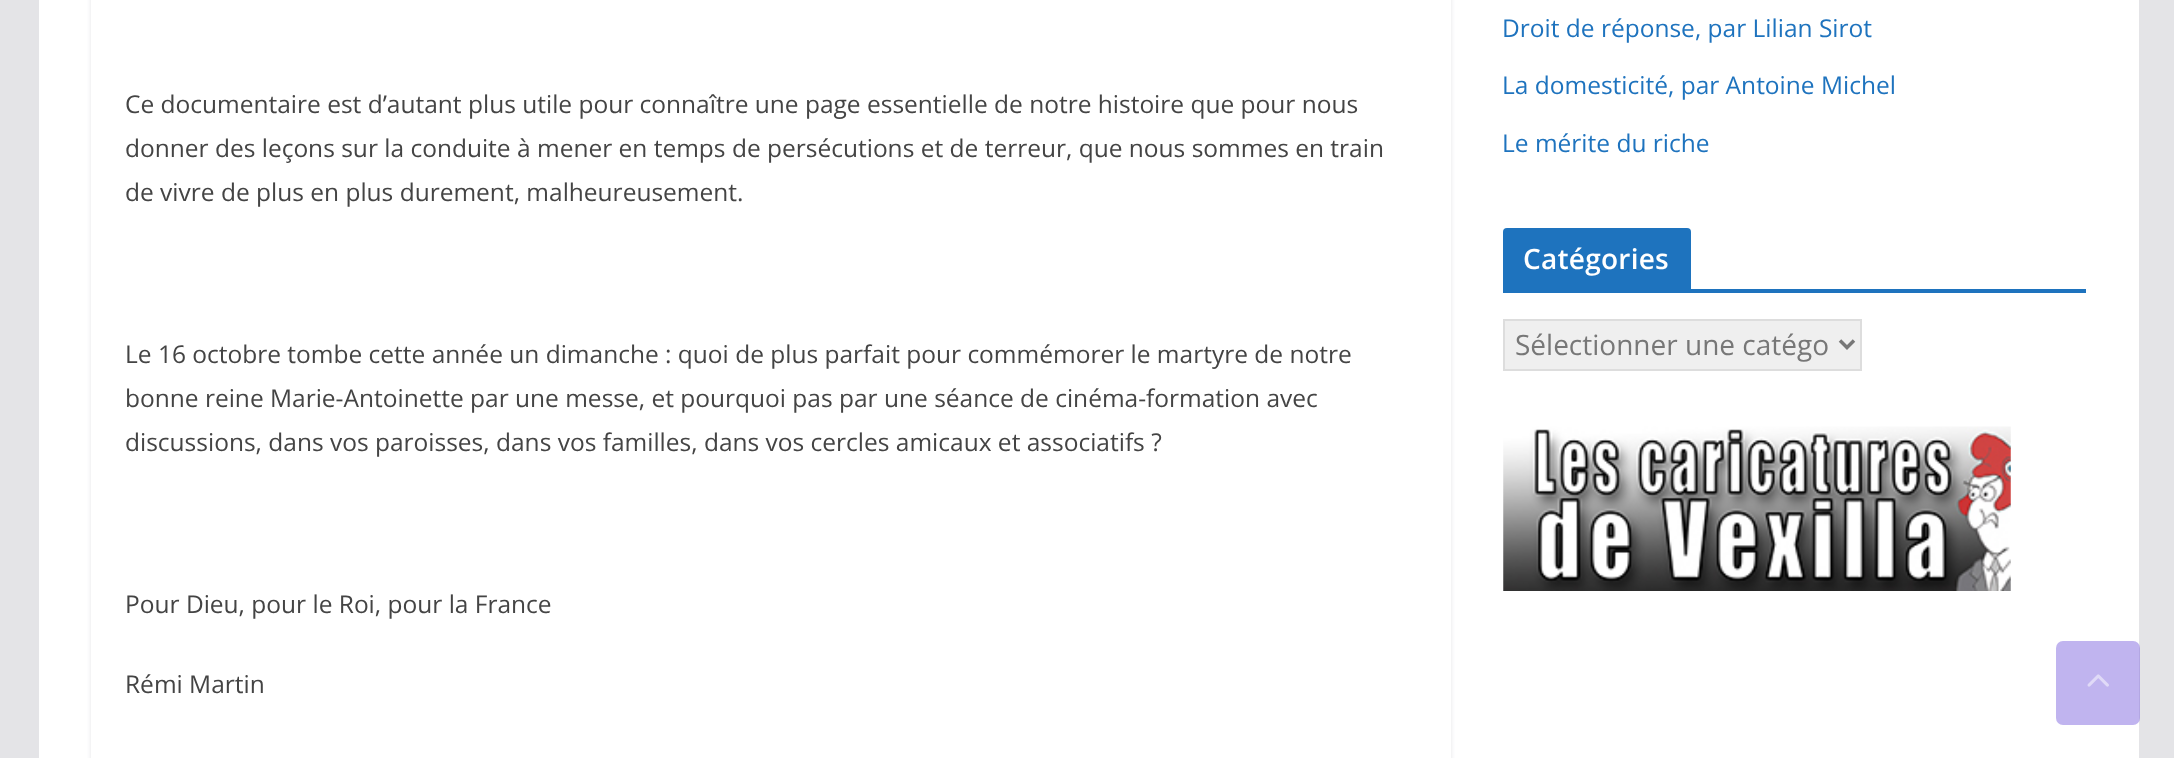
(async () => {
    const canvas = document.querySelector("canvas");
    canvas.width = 2174;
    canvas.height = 758;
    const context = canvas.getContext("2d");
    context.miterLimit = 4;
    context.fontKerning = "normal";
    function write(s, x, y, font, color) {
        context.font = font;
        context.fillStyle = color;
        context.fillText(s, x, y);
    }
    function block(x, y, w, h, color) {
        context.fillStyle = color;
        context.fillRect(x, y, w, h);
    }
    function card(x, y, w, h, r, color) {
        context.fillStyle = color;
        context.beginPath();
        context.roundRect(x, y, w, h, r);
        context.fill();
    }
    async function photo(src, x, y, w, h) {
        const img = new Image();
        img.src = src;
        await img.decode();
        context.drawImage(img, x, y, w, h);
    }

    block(0, 0, 2174, 758, "rgb(228, 228, 231)");
    block(39, 0, 2100, 758, "rgb(255, 255, 255)");
    context.save();
    context.beginPath();
    context.moveTo(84, 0);
    context.lineTo(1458, 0);
    context.lineTo(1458, 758);
    context.lineTo(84, 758);
    context.closePath();
    context.moveTo(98, -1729);
    context.lineTo(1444, -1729);
    context.bezierCurveTo(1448, -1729, 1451, -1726, 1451, -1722);
    context.lineTo(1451, 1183);
    context.bezierCurveTo(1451, 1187, 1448, 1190, 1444, 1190);
    context.lineTo(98, 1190);
    context.bezierCurveTo(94, 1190, 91, 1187, 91, 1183);
    context.lineTo(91, -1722);
    context.bezierCurveTo(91, -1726, 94, -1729, 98, -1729);
    context.closePath();
    context.clip("evenodd");
    context.fillStyle = "rgb(228, 228, 231)";
    context.filter = "blur(2px)";
    context.beginPath();
    context.roundRect(91, -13, 1360, 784, 7);
    context.fill();
    context.filter = "none";
    context.restore();
    write("Ce documentaire est d’autant plus utile pour connaître une page essentielle de notre histoire que pour nous", 125, 113, "24.5px Open Sans", "rgb(68, 68, 68)");
    write("donner des leçons sur la conduite à mener en temps de persécutions et de terreur, que nous sommes en train", 125, 157, "24.5px Open Sans", "rgb(68, 68, 68)");
    write("de vivre de plus en plus durement, malheureusement.", 125, 201, "24.5px Open Sans", "rgb(68, 68, 68)");
    write("Le 16 octobre tombe cette année un dimanche : quoi de plus parfait pour commémorer le martyre de notre", 125, 363, "24.5px Open Sans", "rgb(68, 68, 68)");
    write("bonne reine Marie-Antoinette par une messe, et pourquoi pas par une séance de cinéma-formation avec", 125, 407, "24.5px Open Sans", "rgb(68, 68, 68)");
    write("discussions, dans vos paroisses, dans vos familles, dans vos cercles amicaux et associatifs ?", 125, 451, "24.5px Open Sans", "rgb(68, 68, 68)");
    write("Pour Dieu, pour le Roi, pour la France", 125, 613, "24.5px Open Sans", "rgb(68, 68, 68)");
    write("Rémi Martin", 125, 693, "24.5px Open Sans", "rgb(68, 68, 68)");
    write("Droit de réponse, par Lilian Sirot", 1502, 37, "24.5px Open Sans", "rgb(30, 115, 190)");
    write("La domesticité, par Antoine Michel", 1502, 94, "24.5px Open Sans", "rgb(30, 115, 190)");
    write("Le mérite du riche", 1502, 152, "24.5px Open Sans", "rgb(30, 115, 190)");
    block(1503, 289, 583, 4, "rgb(30, 115, 190)");
    context.beginPath();
    context.roundRect(1503, 228, 188, 61, [4, 4, 0, 0]);
    context.fill();
    context.letterSpacing = "0.25px";
    write("Catégories", 1523, 269, "600 28px Open Sans", "rgb(255, 255, 255)");
    context.fillStyle = "rgb(239, 239, 239)";
    context.beginPath();
    context.rect(1504, 320, 357, 50);
    context.fill();
    context.strokeStyle = "rgb(221, 221, 221)";
    context.lineWidth = 2;
    context.stroke();
    context.beginPath();
    context.moveTo(1840, 340.5);
    context.lineTo(1847, 347.5);
    context.lineTo(1854, 340.5);
    context.strokeStyle = "rgb(119, 119, 119)";
    context.lineWidth = 3.5;
    context.stroke();
    context.letterSpacing = "0px";
    write("Sélectionner une catégo", 1515, 355, "28px Open Sans", "rgb(119, 119, 119)");
    await photo("media/1.png", 1503, 426, 508, 165);
    card(2056, 641, 84, 84, 7, "rgba(130, 105, 223, 0.5)");
    await photo("media/2.png", 2087, 674, 22, 13);
})();
